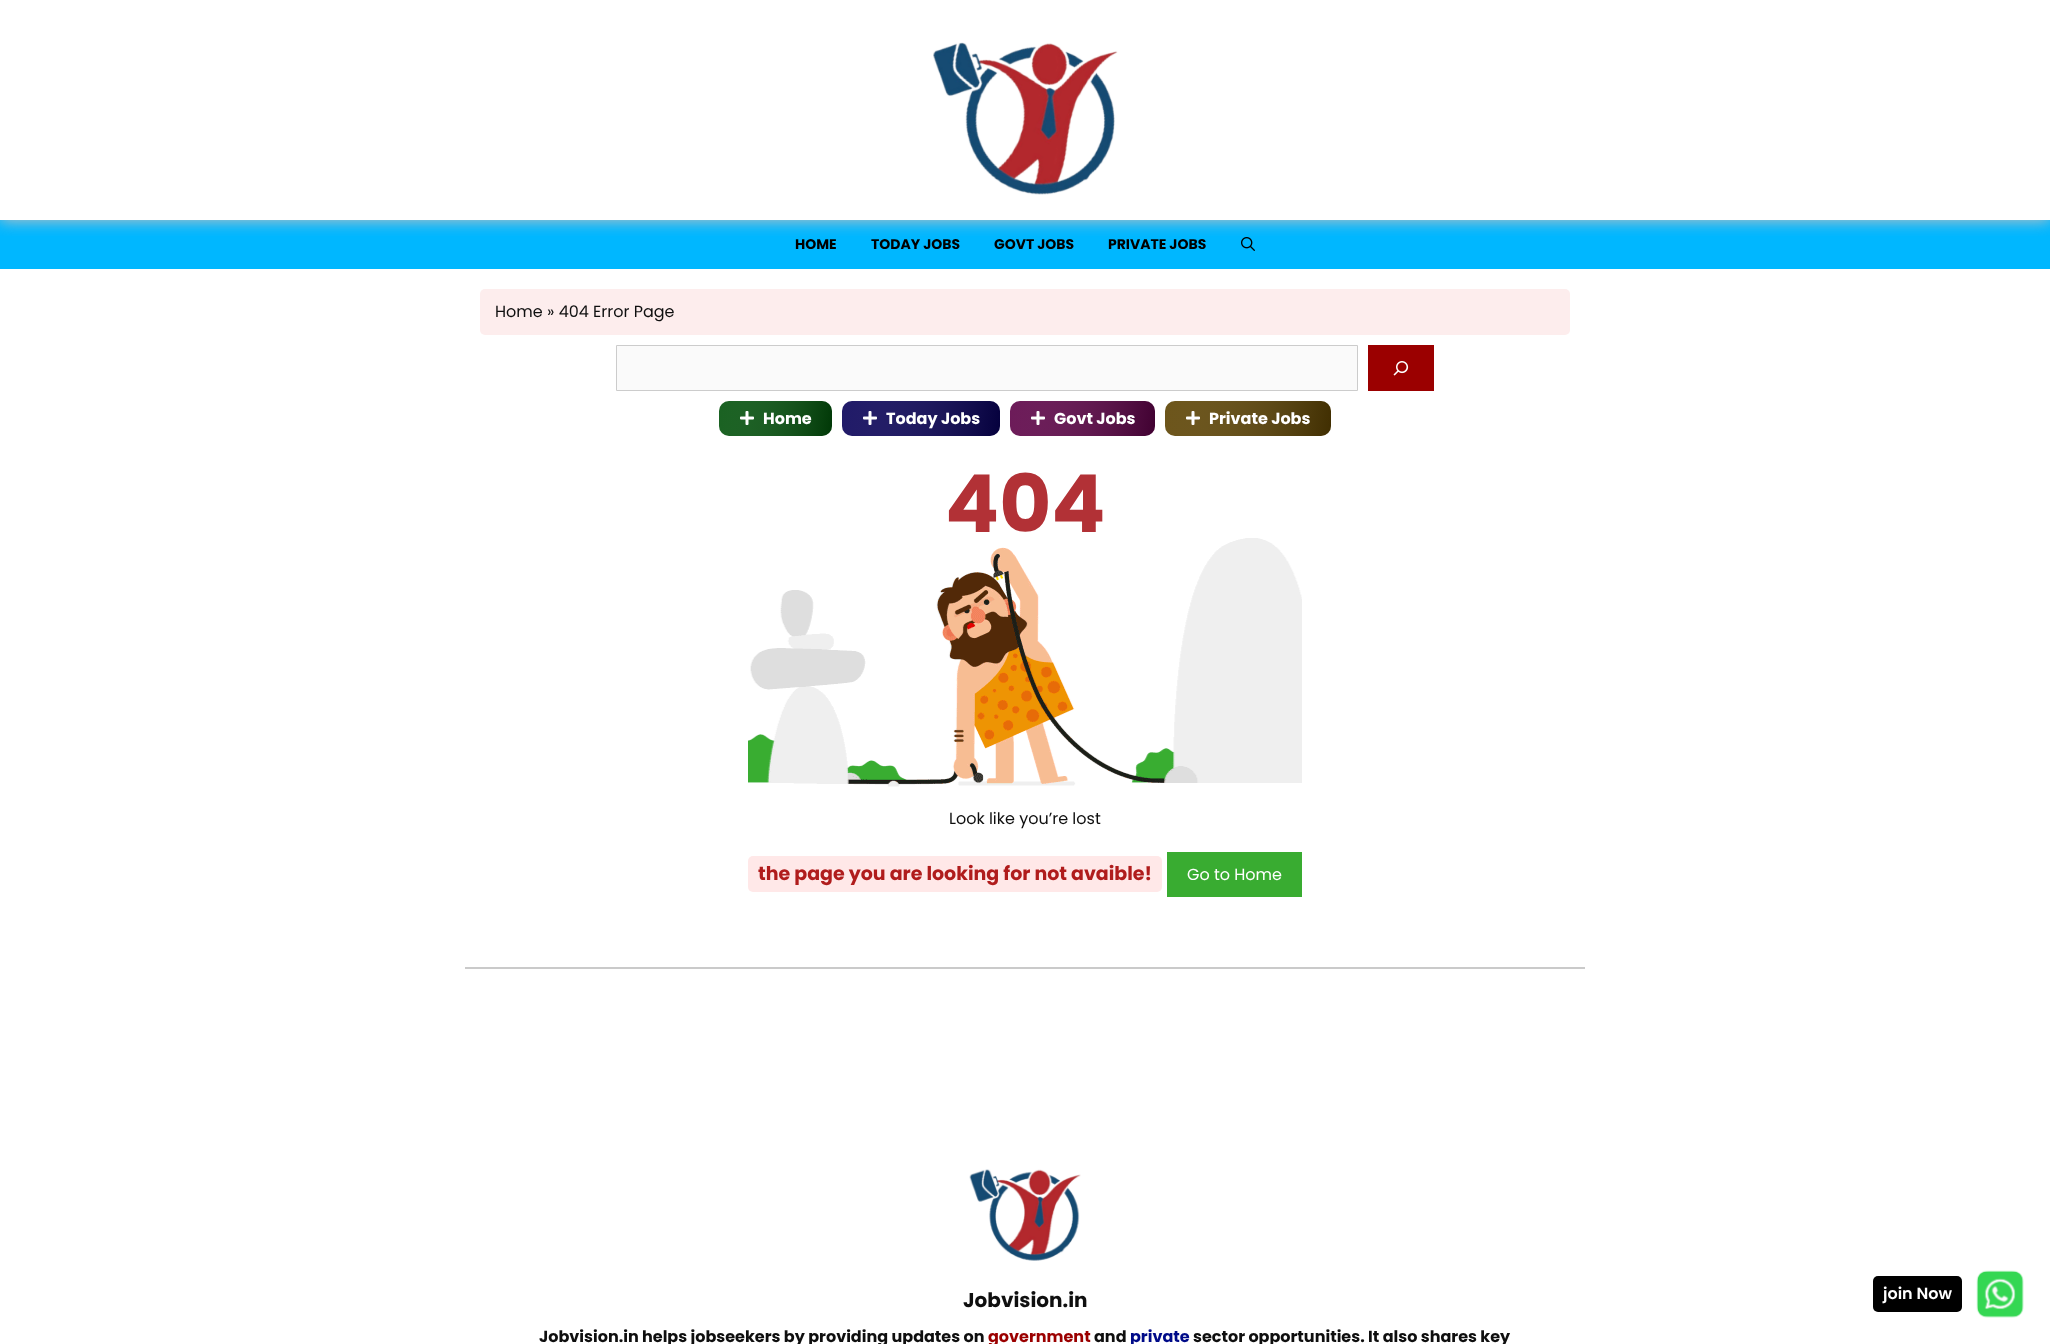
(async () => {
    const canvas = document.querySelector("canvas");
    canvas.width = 2050;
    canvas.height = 1344;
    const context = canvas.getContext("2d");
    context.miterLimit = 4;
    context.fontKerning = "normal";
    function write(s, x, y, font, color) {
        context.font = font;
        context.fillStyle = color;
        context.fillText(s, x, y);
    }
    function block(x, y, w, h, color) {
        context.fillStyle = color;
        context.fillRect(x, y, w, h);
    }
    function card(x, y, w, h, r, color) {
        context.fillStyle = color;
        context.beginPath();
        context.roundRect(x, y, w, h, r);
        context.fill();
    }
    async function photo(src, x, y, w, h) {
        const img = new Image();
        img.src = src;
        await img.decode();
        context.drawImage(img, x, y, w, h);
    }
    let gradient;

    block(0, 0, 2050, 1344, "rgb(255, 255, 255)");
    block(0, 220, 2050, 49, "rgb(0, 183, 255)");
    context.save();
    context.beginPath();
    context.rect(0, 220, 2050, 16);
    context.clip();
    context.fillStyle = "rgb(193, 192, 192)";
    context.filter = "blur(7.5px)";
    context.beginPath();
    context.rect(0, 1, 2050, 220);
    context.fill();
    context.filter = "none";
    context.restore();
    await photo("media/1.png", 933, 42, 185, 153);
    write("HOME", 795, 249, "bold 14px Poppins", "rgb(0, 0, 0)");
    write("TODAY JOBS", 871, 249, "bold 14px Poppins", "rgb(0, 0, 0)");
    write("GOVT JOBS", 994, 249, "bold 14px Poppins", "rgb(0, 0, 0)");
    write("PRIVATE JOBS", 1108, 249, "bold 14px Poppins", "rgb(0, 0, 0)");
    await photo("media/2.png", 1241, 237, 14, 14);
    card(480, 289, 1090, 46, 5, "rgb(253, 237, 237)");
    write("Home", 495, 317, "16px Poppins", "rgb(15, 15, 15)");
    write("» 404 Error Page", 547, 317, "16px Poppins", "rgb(15, 15, 15)");
    context.fillStyle = "rgb(250, 250, 250)";
    context.beginPath();
    context.rect(616.5, 345.5, 741, 45);
    context.fill();
    context.strokeStyle = "rgb(204, 204, 204)";
    context.stroke();
    block(1368, 345, 66, 46, "rgb(155, 0, 0)");
    await photo("media/3.png", 1393, 361, 16, 15);
    card(719, 401, 113, 35, 10, "rgb(0, 80, 9)");
    gradient = context.createLinearGradient(718, 410, 833, 427);
    gradient.addColorStop(0, "rgba(255, 255, 255, 0.1)");
    gradient.addColorStop(1, "rgba(0, 0, 0, 0.3)");
    context.fillStyle = gradient;
    context.beginPath();
    context.roundRect(719, 401, 113, 35, 10);
    context.fill();
    await photo("media/4.png", 740, 411, 14, 14);
    write("Home", 763, 424, "bold 16px Poppins", "rgb(255, 255, 255)");
    card(842, 401, 158, 35, 10, "rgb(7, 0, 87)");
    gradient = context.createLinearGradient(841, 407, 1001, 430);
    gradient.addColorStop(0, "rgba(255, 255, 255, 0.1)");
    gradient.addColorStop(1, "rgba(0, 0, 0, 0.3)");
    context.fillStyle = gradient;
    context.beginPath();
    context.roundRect(842, 401, 158, 35, 10);
    context.fill();
    await photo("media/5.png", 863, 411, 14, 14);
    write("Today Jobs", 886, 424, "bold 16px Poppins", "rgb(255, 255, 255)");
    card(1010, 401, 145, 35, 10, "rgb(92, 1, 70)");
    gradient = context.createLinearGradient(1009, 408, 1156, 429);
    gradient.addColorStop(0, "rgba(255, 255, 255, 0.1)");
    gradient.addColorStop(1, "rgba(0, 0, 0, 0.3)");
    context.fillStyle = gradient;
    context.beginPath();
    context.roundRect(1010, 401, 145, 35, 10);
    context.fill();
    await photo("media/6.png", 1031, 411, 14, 14);
    write("Govt Jobs", 1054, 424, "bold 16px Poppins", "rgb(255, 255, 255)");
    card(1165, 401, 166, 35, 10, "rgb(92, 66, 1)");
    gradient = context.createLinearGradient(1164, 407, 1332, 430);
    gradient.addColorStop(0, "rgba(255, 255, 255, 0.1)");
    gradient.addColorStop(1, "rgba(0, 0, 0, 0.3)");
    context.fillStyle = gradient;
    context.beginPath();
    context.roundRect(1165, 401, 166, 35, 10);
    context.fill();
    await photo("media/7.png", 1186, 411, 14, 14);
    write("Private Jobs", 1209, 424, "bold 16px Poppins", "rgb(255, 255, 255)");
    await photo("media/8.png", 748, 538, 554, 249);
    write("404", 945, 532, "bold 80px Poppins", "rgb(178, 49, 54)");
    write("Look like you’re lost", 949, 824, "16px Poppins", "rgb(15, 15, 15)");
    card(748, 856, 414, 36, 5, "rgb(255, 232, 232)");
    write("the page you are looking for not avaible!", 758, 880, "bold 19px Poppins", "rgb(176, 28, 28)");
    block(1167, 852, 135, 45, "rgb(57, 172, 49)");
    write("Go to Home", 1187, 880, "16px Poppins", "rgb(255, 255, 255)");
    block(465, 967, 1120, 2, "rgb(202, 202, 202)");
    await photo("media/9.png", 969, 1169, 112, 92);
    write("Jobvision.in", 963, 1307, "bold 20px Poppins", "rgb(15, 15, 15)");
    write("Jobvision.in", 539, 1342, "bold 16px Poppins", "rgb(15, 15, 15)");
    write("helps jobseekers by providing updates on", 642, 1342, "bold 16px Poppins", "rgb(15, 15, 15)");
    write("government", 988, 1342, "bold 16px Poppins", "rgb(155, 0, 0)");
    write("and", 1094, 1342, "bold 16px Poppins", "rgb(15, 15, 15)");
    write("private", 1130, 1342, "bold 16px Poppins", "rgb(0, 11, 137)");
    write("sector opportunities. It also shares key", 1193, 1342, "bold 16px Poppins", "rgb(15, 15, 15)");
    card(1873, 1276, 89, 36, 5, "rgb(0, 0, 0)");
    write("join Now", 1883, 1299, "600 16px Poppins", "rgb(255, 255, 255)");
    await photo("media/10.png", 1976, 1270, 48, 48);
})();
